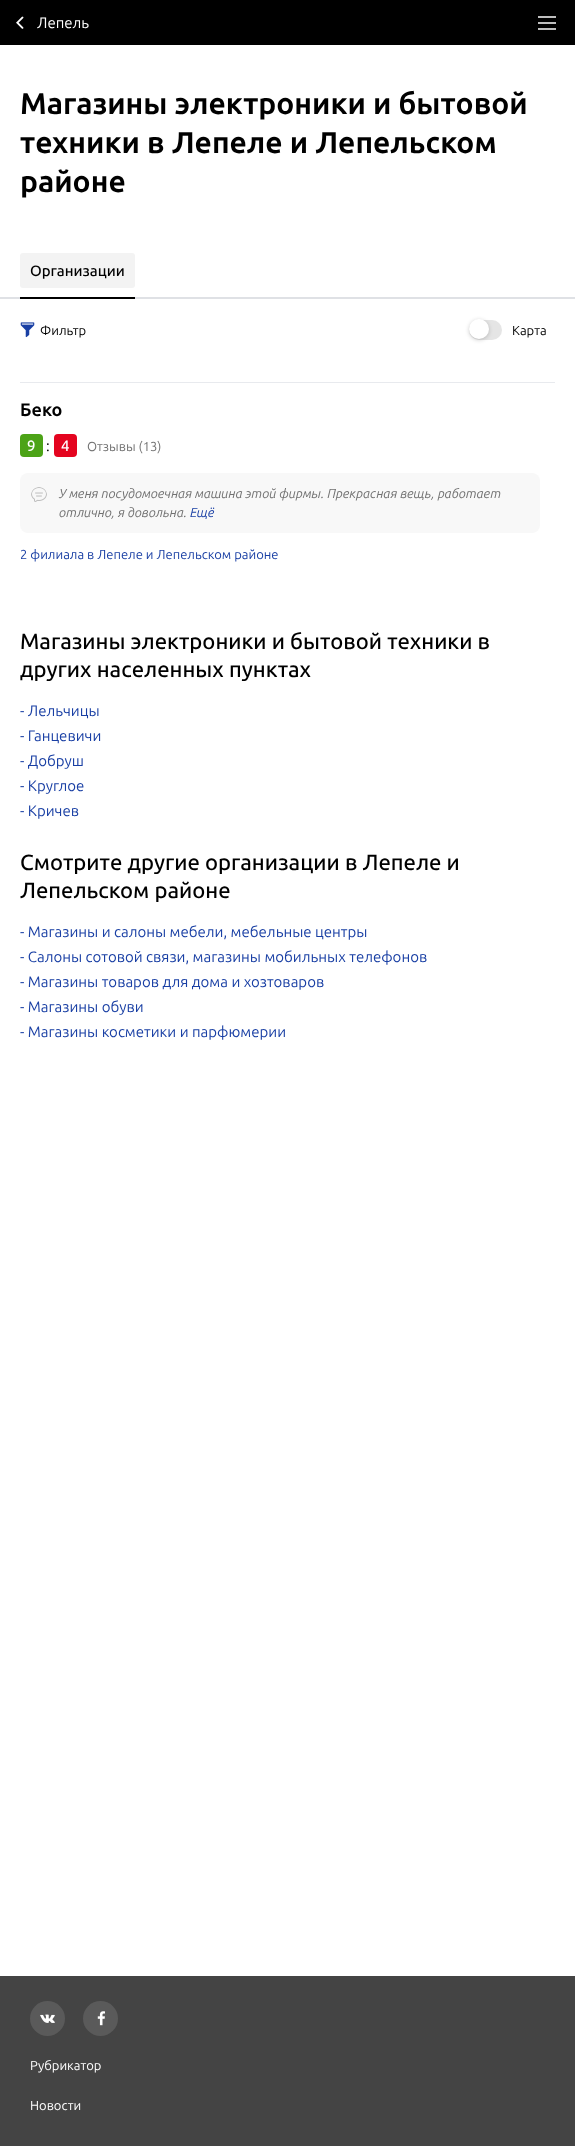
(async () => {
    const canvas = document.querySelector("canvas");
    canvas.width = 575;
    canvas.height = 2146;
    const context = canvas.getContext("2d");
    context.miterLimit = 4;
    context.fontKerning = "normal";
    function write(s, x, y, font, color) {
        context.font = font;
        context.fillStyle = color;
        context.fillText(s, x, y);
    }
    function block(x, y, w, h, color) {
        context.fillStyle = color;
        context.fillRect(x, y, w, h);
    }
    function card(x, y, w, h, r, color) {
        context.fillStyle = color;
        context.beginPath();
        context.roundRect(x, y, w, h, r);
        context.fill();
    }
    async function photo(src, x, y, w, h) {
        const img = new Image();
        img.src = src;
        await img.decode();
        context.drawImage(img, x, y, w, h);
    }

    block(0, 0, 575, 2146, "rgb(255, 255, 255)");
    block(0, 0, 575, 45, "rgb(0, 0, 0)");
    await photo("media/1.png", 16, 16, 8, 13);
    write("Лепель", 37, 28, "15px Ubuntu", "rgb(255, 255, 255)");
    await photo("media/2.png", 538, 16, 18, 14);
    write("Магазины электроники и бытовой", 20, 114, "bold 30px Ubuntu", "rgb(0, 0, 0)");
    write("техники в Лепеле и Лепельском", 20, 153, "bold 30px Ubuntu", "rgb(0, 0, 0)");
    write("районе", 20, 192, "bold 30px Ubuntu", "rgb(0, 0, 0)");
    block(0, 297, 575, 2, "rgb(223, 225, 229)");
    block(20, 297, 115, 2, "rgb(0, 0, 0)");
    card(20, 253, 115, 35, 3, "rgb(243, 243, 243)");
    write("Организации", 30, 276, "500 15px Ubuntu", "rgb(0, 0, 0)");
    await photo("media/3.png", 20, 322, 15, 16);
    write("Фильтр", 40, 335, "13px Ubuntu", "rgb(0, 0, 0)");
    card(469, 320, 33, 20, 10, "rgb(229, 229, 229)");
    context.fillStyle = "rgba(0, 0, 0, 0.2)";
    context.filter = "blur(2px)";
    context.beginPath();
    context.roundRect(469, 320, 20, 20, 10);
    context.fill();
    context.filter = "none";
    context.fillStyle = "rgb(255, 255, 255)";
    context.beginPath();
    context.arc(479, 329, 10, 0, Math.PI * 2);
    context.fill();
    write("Карта", 512, 335, "13px Ubuntu", "rgb(0, 0, 0)");
    block(20, 382, 535, 1, "rgb(232, 234, 238)");
    write("Беко", 20, 416, "bold 18px Ubuntu", "rgb(0, 0, 0)");
    card(20, 434, 23, 23, 4, "rgb(76, 163, 23)");
    write("9", 27, 451, "500 15px Ubuntu", "rgb(255, 255, 255)");
    write(":", 46, 451, "15px Ubuntu", "rgb(0, 0, 0)");
    card(54, 434, 23, 23, 4, "rgb(228, 4, 31)");
    write("4", 61, 451, "500 15px Ubuntu", "rgb(255, 255, 255)");
    write("Отзывы (13)", 87, 451, "13px Ubuntu", "rgb(113, 113, 113)");
    card(20, 473, 520, 60, 8, "rgb(248, 248, 248)");
    await photo("media/4.png", 31, 487, 16, 15);
    write("У меня посудомоечная машина этой фирмы. Прекрасная вещь, работает", 59, 498, "italic 13px Ubuntu", "rgb(113, 113, 113)");
    write("отлично, я довольна.", 59, 517, "italic 13px Ubuntu", "rgb(113, 113, 113)");
    write("Ещё", 190, 517, "italic 13px Ubuntu", "rgb(25, 63, 164)");
    write("2 филиала в Лепеле и Лепельском районе", 20, 559, "13px Ubuntu", "rgb(25, 63, 164)");
    write("Магазины электроники и бытовой техники в", 20, 649, "500 22px Ubuntu", "rgb(0, 0, 0)");
    write("других населенных пунктах", 20, 677, "500 22px Ubuntu", "rgb(0, 0, 0)");
    write("- Лельчицы", 20, 716, "15px Ubuntu", "rgb(25, 63, 164)");
    write("- Ганцевичи", 20, 741, "15px Ubuntu", "rgb(25, 63, 164)");
    write("- Добруш", 20, 766, "15px Ubuntu", "rgb(25, 63, 164)");
    write("- Круглое", 20, 791, "15px Ubuntu", "rgb(25, 63, 164)");
    write("- Кричев", 20, 816, "15px Ubuntu", "rgb(25, 63, 164)");
    write("Смотрите другие организации в Лепеле и", 20, 870, "500 22px Ubuntu", "rgb(0, 0, 0)");
    write("Лепельском районе", 20, 898, "500 22px Ubuntu", "rgb(0, 0, 0)");
    write("- Магазины и салоны мебели, мебельные центры", 20, 937, "15px Ubuntu", "rgb(25, 63, 164)");
    write("- Салоны сотовой связи, магазины мобильных телефонов", 20, 962, "15px Ubuntu", "rgb(25, 63, 164)");
    write("- Магазины товаров для дома и хозтоваров", 20, 987, "15px Ubuntu", "rgb(25, 63, 164)");
    write("- Магазины обуви", 20, 1012, "15px Ubuntu", "rgb(25, 63, 164)");
    write("- Магазины косметики и парфюмерии", 20, 1037, "15px Ubuntu", "rgb(25, 63, 164)");
    block(0, 1976, 575, 170, "rgb(68, 68, 68)");
    context.fillStyle = "rgb(90, 90, 90)";
    context.beginPath();
    context.arc(47.5, 2018.5, 17.5, 0, Math.PI * 2);
    context.fill();
    await photo("media/5.png", 40, 2014, 15, 9);
    context.beginPath();
    context.arc(100.5, 2018.5, 17.5, 0, Math.PI * 2);
    context.fill();
    await photo("media/6.png", 97, 2011, 8, 15);
    write("Рубрикатор", 30, 2070, "13px Ubuntu", "rgb(255, 255, 255)");
    write("Новости", 30, 2110, "13px Ubuntu", "rgb(255, 255, 255)");
})();
